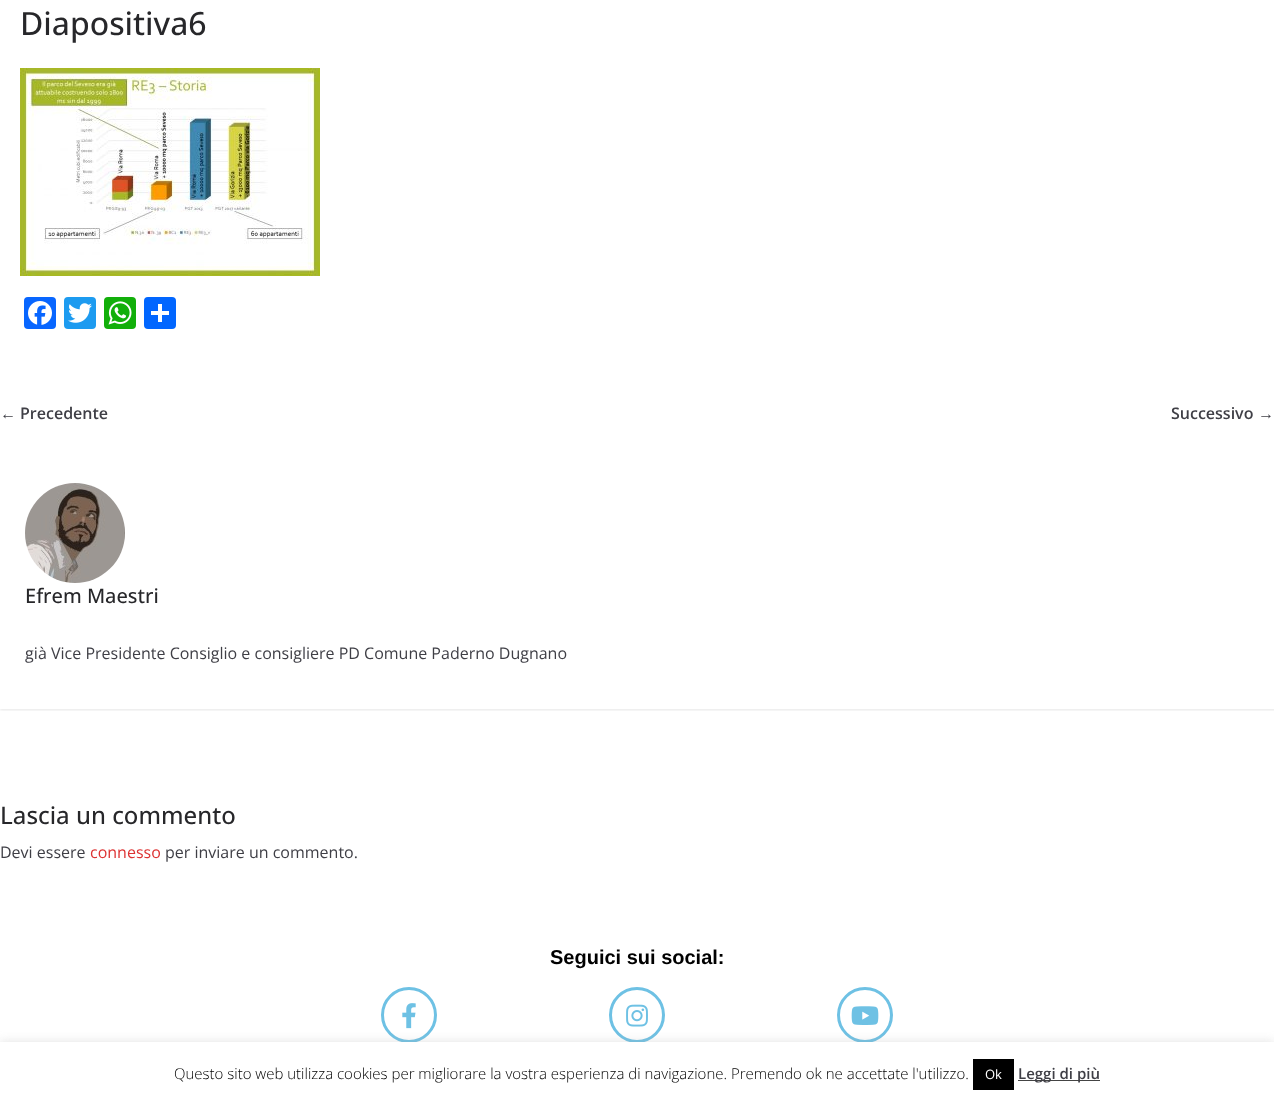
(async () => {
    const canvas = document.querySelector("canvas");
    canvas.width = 1274;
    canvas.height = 1102;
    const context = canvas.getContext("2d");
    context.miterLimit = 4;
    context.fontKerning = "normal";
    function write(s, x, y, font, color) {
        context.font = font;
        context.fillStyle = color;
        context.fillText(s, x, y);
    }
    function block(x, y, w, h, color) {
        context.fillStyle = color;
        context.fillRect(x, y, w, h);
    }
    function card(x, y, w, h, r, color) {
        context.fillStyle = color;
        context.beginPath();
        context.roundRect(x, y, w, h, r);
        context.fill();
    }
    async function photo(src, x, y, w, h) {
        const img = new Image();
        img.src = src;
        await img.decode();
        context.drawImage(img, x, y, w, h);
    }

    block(0, 0, 1274, 1102, "rgb(255, 255, 255)");
    write("Diapositiva6", 20, 35, "500 32px Open Sans", "rgb(39, 39, 42)");
    await photo("media/1.png", 20, 68, 300, 208);
    card(24, 297, 32, 32, 4, "rgb(8, 102, 255)");
    await photo("media/2.png", 28, 301, 24, 24);
    card(64, 297, 32, 32, 4, "rgb(29, 155, 240)");
    await photo("media/3.png", 68, 303, 24, 20);
    card(104, 297, 32, 32, 4, "rgb(18, 175, 10)");
    await photo("media/4.png", 108, 301, 24, 24);
    card(144, 297, 32, 32, 4, "rgb(1, 102, 255)");
    block(158, 304, 4, 18, "rgb(255, 255, 255)");
    block(151, 311, 18, 4, "rgb(255, 255, 255)");
    write("←", 0, 419, "bold 16px Liberation Serif", "rgb(63, 63, 70)");
    write("Precedente", 20, 419, "600 16px Open Sans", "rgb(63, 63, 70)");
    write("Successivo", 1171, 419, "600 16px Open Sans", "rgb(63, 63, 70)");
    write("→", 1258, 419, "bold 16px Liberation Serif", "rgb(63, 63, 70)");
    context.save();
    context.beginPath();
    context.rect(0, 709, 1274, 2);
    context.clip();
    context.fillStyle = "rgba(0, 0, 0, 0.1)";
    context.filter = "blur(1.5px)";
    context.beginPath();
    context.rect(0, 458, 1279, 252);
    context.fill();
    context.filter = "none";
    context.restore();
    await photo("media/5.png", 25, 483, 100, 100);
    write("Efrem Maestri", 25, 603, "500 20px Open Sans", "rgb(39, 39, 42)");
    write("gi", 25, 659, "16px Open Sans", "rgb(63, 63, 70)");
    write("à", 38, 659, "16px 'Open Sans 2'", "rgb(63, 63, 70)");
    write("Vice Presidente Consiglio e consigliere PD Comune Paderno Dugnano", 51, 659, "16px Open Sans", "rgb(63, 63, 70)");
    write("Lascia un commento", 0, 824, "500 24px Open Sans", "rgb(39, 39, 42)");
    write("Devi essere", 0, 858, "16px Open Sans", "rgb(63, 63, 70)");
    write("connesso", 90, 858, "16px Open Sans", "rgb(221, 51, 51)");
    write("per inviare un commento.", 165, 858, "16px Open Sans", "rgb(63, 63, 70)");
    write("Seguici sui social:", 550, 964, "bold 20px Liberation Sans", "rgb(0, 0, 0)");
    context.beginPath();
    context.arc(409, 1015, 26.5, 0, Math.PI * 2);
    context.strokeStyle = "rgb(110, 193, 228)";
    context.lineWidth = 3;
    context.stroke();
    await photo("media/6.png", 402, 1003, 14, 26);
    context.beginPath();
    context.arc(637, 1015, 26.5, 0, Math.PI * 2);
    context.stroke();
    await photo("media/7.png", 626, 1004, 22, 23);
    context.beginPath();
    context.arc(865, 1015, 26.5, 0, Math.PI * 2);
    context.stroke();
    await photo("media/8.png", 851, 1006, 28, 19);
    context.fillStyle = "rgba(172, 171, 171, 0.3)";
    context.filter = "blur(5px)";
    context.beginPath();
    context.rect(0, 1041, 1274, 60);
    context.fill();
    context.filter = "none";
    block(0, 1042, 1274, 60, "rgb(255, 255, 255)");
    write("Questo sito web utilizza cookies per migliorare la vostra esperienza di navigazione. Premendo ok ne accettate l'utilizzo.", 174, 1079, "300 15px Open Sans", "rgb(0, 0, 0)");
    block(973, 1059, 41, 31, "rgb(0, 0, 0)");
    write("Ok", 985, 1079, "13px Open Sans", "rgb(255, 255, 255)");
    block(1018, 1080, 82, 1, "rgb(68, 68, 68)");
    write("Leggi di più", 1018, 1079, "600 15px Open Sans", "rgb(63, 63, 70)");
})();
